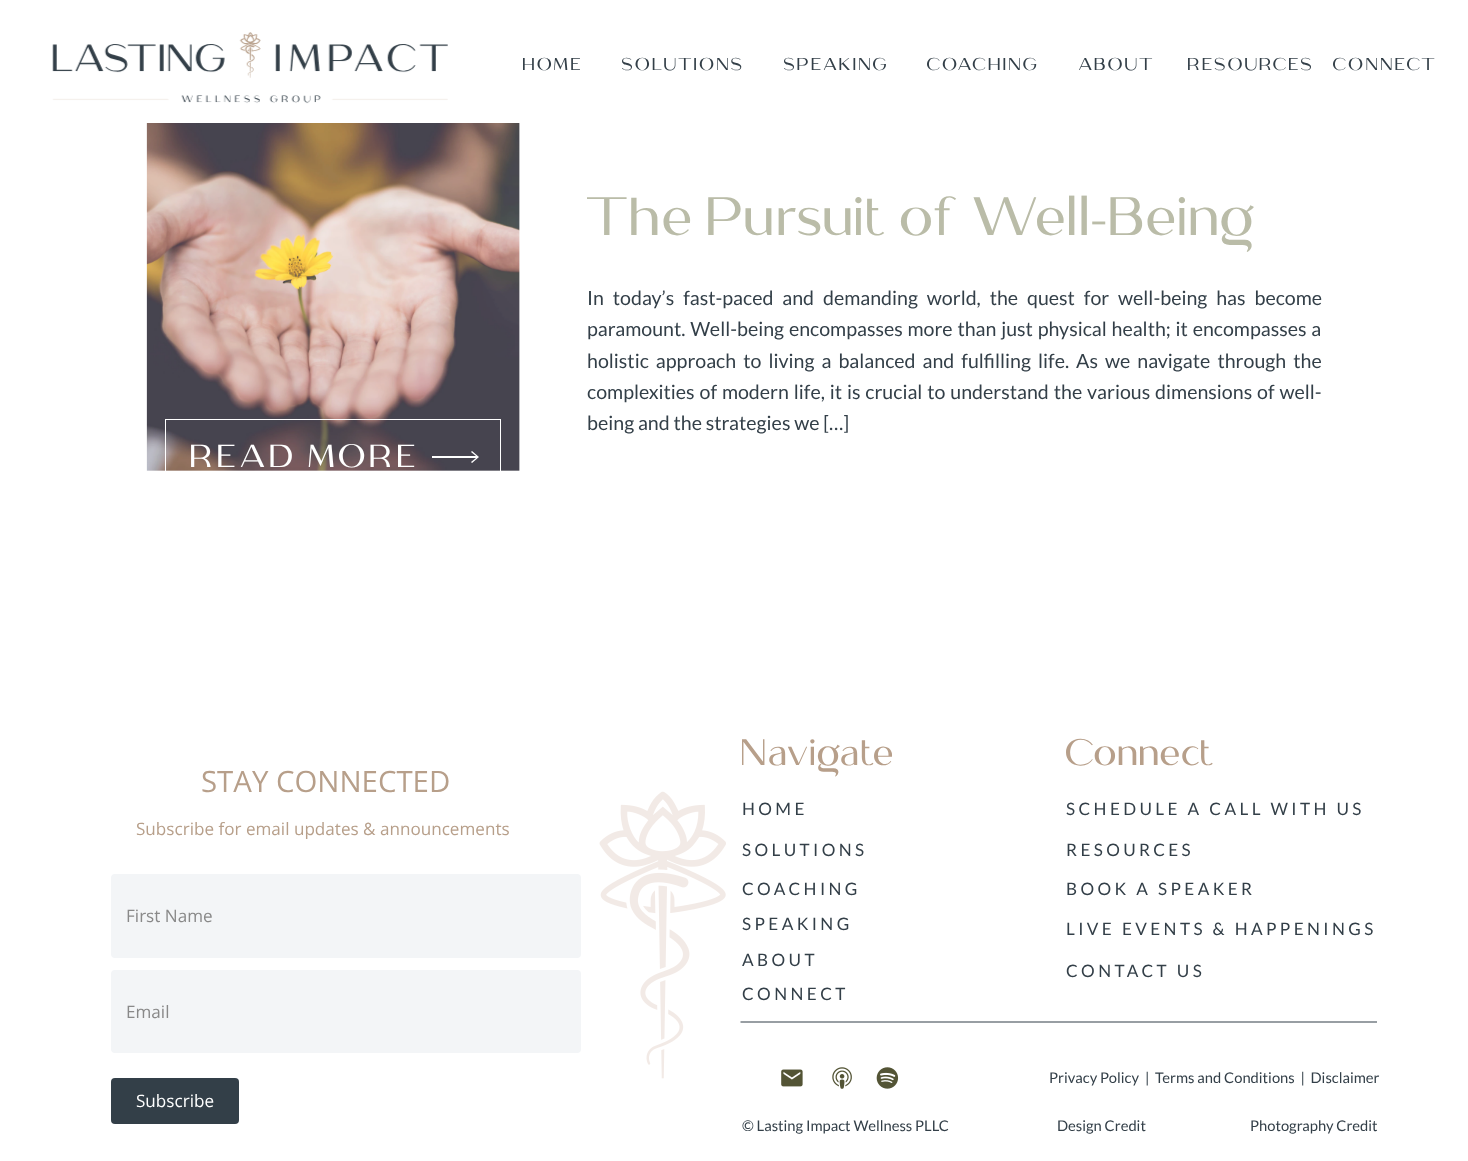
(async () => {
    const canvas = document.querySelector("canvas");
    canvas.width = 1468;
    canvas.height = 1161;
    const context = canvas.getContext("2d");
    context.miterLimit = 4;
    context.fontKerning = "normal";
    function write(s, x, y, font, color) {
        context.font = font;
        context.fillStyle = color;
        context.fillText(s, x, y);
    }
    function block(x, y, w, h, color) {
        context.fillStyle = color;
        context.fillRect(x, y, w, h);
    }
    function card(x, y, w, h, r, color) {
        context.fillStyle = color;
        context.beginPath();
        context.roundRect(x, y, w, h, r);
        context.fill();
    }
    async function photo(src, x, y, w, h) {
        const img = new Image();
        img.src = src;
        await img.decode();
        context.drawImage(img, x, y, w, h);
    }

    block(0, 0, 1468, 1161, "rgb(255, 255, 255)");
    await photo("media/1.png", 52, 32, 396, 72);
    context.letterSpacing = "1.75px";
    write("HOME", 523, 70, "17.1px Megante", "rgb(51, 63, 72)");
    write("SOLUTIONS", 622, 70, "17.1px Megante", "rgb(51, 63, 72)");
    write("SPEAKING", 784, 70, "17.1px Megante", "rgb(51, 63, 72)");
    write("ABOUT", 1079, 70, "17.1px Megante", "rgb(51, 63, 72)");
    write("CONNECT", 1333, 70, "17.1px Megante", "rgb(51, 63, 72)");
    write("COACHING", 927, 70, "17.1px Megante", "rgb(51, 63, 72)");
    write("RESOURCES", 1188, 70, "17.1px Megante", "rgb(51, 63, 72)");
    await photo("media/2.png", 146, 123, 374, 348);
    context.letterSpacing = "0px";
    write("The Pursuit of Well-Being", 587, 235, "53.8px Megante", "rgb(186, 188, 168)");
    context.wordSpacing = "5.1px";
    write("In today’s fast-paced and demanding world, the quest for well-being has become", 587, 305, "19.6px Lato", "rgb(51, 63, 72)");
    context.wordSpacing = "1px";
    write("paramount. Well-being encompasses more than just physical health; it encompasses a", 587, 336, "19.6px Lato", "rgb(51, 63, 72)");
    context.wordSpacing = "3.25px";
    write("holistic approach to living a balanced and fulfilling life. As we navigate through the", 587, 368, "19.6px Lato", "rgb(51, 63, 72)");
    context.wordSpacing = "1.1px";
    write("complexities of modern life, it is crucial to understand the various dimensions of well-", 587, 399, "19.6px Lato", "rgb(51, 63, 72)");
    context.wordSpacing = "0px";
    write("being and the strategies we […]", 587, 430, "19.6px Lato", "rgb(51, 63, 72)");
    context.strokeStyle = "rgb(255, 255, 255)";
    context.strokeRect(165.5, 419.5, 335, 73);
    context.letterSpacing = "3.25px";
    write("READ MORE", 191, 467, "31.75px Megante", "rgb(255, 255, 255)");
    context.beginPath();
    context.moveTo(472, 451);
    context.lineTo(471, 452);
    context.lineTo(476, 456);
    context.lineTo(432, 456);
    context.lineTo(432, 458);
    context.lineTo(476, 458);
    context.lineTo(471, 462);
    context.lineTo(472, 463);
    context.lineTo(479, 457);
    context.closePath();
    context.fill();
    context.letterSpacing = "0px";
    write("Navigate", 742, 765, "36.5px Megante", "rgb(183, 159, 138)");
    write("Connect", 1066, 765, "36.5px Megante", "rgb(183, 159, 138)");
    write("STAY CONNECTED", 201, 792, "29.4px Open Sans", "rgb(183, 159, 138)");
    write("Subscribe for email updates & announcements", 136, 835, "17.1px Open Sans", "rgb(183, 159, 138)");
    context.fillStyle = "rgb(243, 245, 247)";
    context.beginPath();
    context.roundRect(112.5, 875.5, 467, 81, 2.5);
    context.fill();
    context.strokeStyle = "rgb(243, 245, 247)";
    context.lineWidth = 3;
    context.stroke();
    write("First Name", 126, 922, "17.1px Open Sans", "rgb(137, 137, 137)");
    context.fillStyle = "rgb(243, 245, 247)";
    context.beginPath();
    context.roundRect(112.5, 971.5, 467, 80, 2.5);
    context.fill();
    context.stroke();
    write("Email", 126, 1018, "17.1px Open Sans", "rgb(137, 137, 137)");
    card(111, 1078, 128, 46, 4, "rgb(51, 63, 72)");
    write("Subscribe", 136, 1107, "17.1px Open Sans", "rgb(255, 255, 255)");
    await photo("media/3.png", 599, 791, 127, 288);
    context.letterSpacing = "3.4px";
    write("HOME", 742, 815, "17.1px Lato", "rgb(51, 63, 72)");
    write("SCHEDULE A CALL WITH US", 1066, 815, "17.1px Lato", "rgb(51, 63, 72)");
    write("SOLUTIONS", 742, 856, "17.1px Lato", "rgb(51, 63, 72)");
    write("RESOURCES", 1066, 856, "17.1px Lato", "rgb(51, 63, 72)");
    write("COACHING", 742, 895, "17.1px Lato", "rgb(51, 63, 72)");
    write("BOOK A SPEAKER", 1066, 895, "17.1px Lato", "rgb(51, 63, 72)");
    write("SPEAKING", 742, 930, "17.1px Lato", "rgb(51, 63, 72)");
    write("LIVE EVENTS & HAPPENINGS", 1066, 935, "17.1px Lato", "rgb(51, 63, 72)");
    write("ABOUT", 742, 966, "17.1px Lato", "rgb(51, 63, 72)");
    write("CONTACT US", 1066, 977, "17.1px Lato", "rgb(51, 63, 72)");
    write("CONNECT", 742, 1000, "17.1px Lato", "rgb(51, 63, 72)");
    context.beginPath();
    context.moveTo(740.5, 1022);
    context.lineTo(1377, 1022);
    context.strokeStyle = "rgb(51, 63, 72)";
    context.lineWidth = 1.2;
    context.stroke();
    await photo("media/4.png", 781, 1069, 22, 18);
    await photo("media/5.png", 832, 1067, 20, 22);
    await photo("media/6.png", 876, 1067, 23, 22);
    context.letterSpacing = "0px";
    write("Privacy Policy", 1049, 1083, "14.75px Lato", "rgb(51, 63, 72)");
    write("|  Terms and Conditions  |  Disclaimer", 1145, 1083, "14.75px Lato", "rgb(51, 63, 72)");
    write("© Lasting Impact Wellness PLLC", 742, 1131, "14.75px Lato", "rgb(51, 63, 72)");
    write("Design Credit", 1057, 1131, "14.75px Lato", "rgb(51, 63, 72)");
    write("Photography Credit", 1250, 1131, "14.75px Lato", "rgb(51, 63, 72)");
})();
